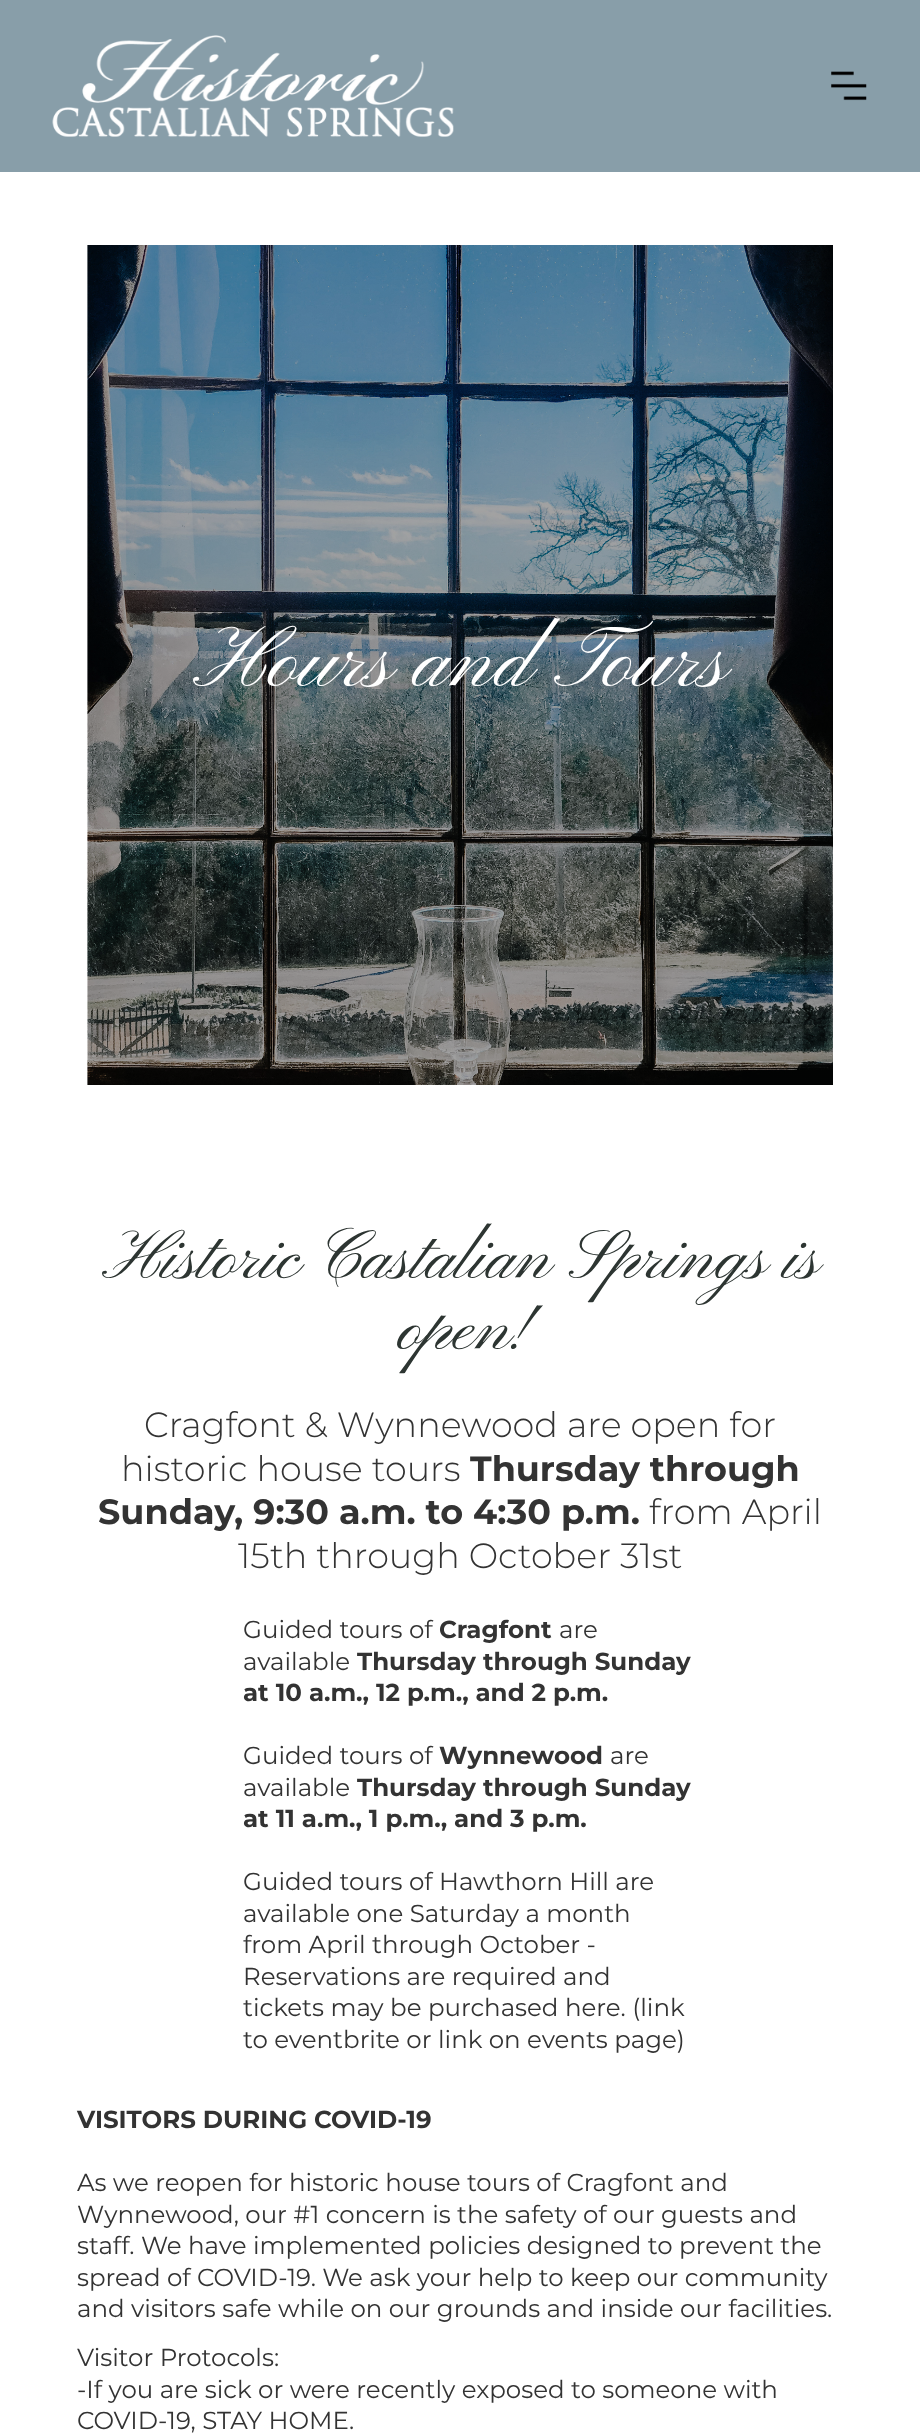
(async () => {
    const canvas = document.querySelector("canvas");
    canvas.width = 920;
    canvas.height = 2434;
    const context = canvas.getContext("2d");
    context.miterLimit = 4;
    context.fontKerning = "normal";
    function write(s, x, y, font, color) {
        context.font = font;
        context.fillStyle = color;
        context.fillText(s, x, y);
    }
    function block(x, y, w, h, color) {
        context.fillStyle = color;
        context.fillRect(x, y, w, h);
    }
    async function photo(src, x, y, w, h) {
        const img = new Image();
        img.src = src;
        await img.decode();
        context.drawImage(img, x, y, w, h);
    }

    block(0, 0, 920, 2434, "rgb(255, 255, 255)");
    block(0, 0, 920, 172, "rgb(136, 158, 169)");
    await photo("media/1.png", 52, 35, 402, 102);
    await photo("media/2.png", 831, 71, 36, 30);
    await photo("media/3.png", 87, 245, 746, 840);
    write("Hours and Tours", 193, 686, "87.5px Pinyon Script", "rgb(255, 255, 255)");
    write("Historic Castalian Springs is", 102, 1278, "70px Pinyon Script", "rgb(45, 53, 50)");
    write("open!", 397, 1349, "70px Pinyon Script", "rgb(45, 53, 50)");
    write("Cragfont & Wynnewood are open for", 144, 1437, "300 35px Montserrat", "rgb(51, 51, 51)");
    write("historic house tours", 121, 1481, "300 35px Montserrat", "rgb(51, 51, 51)");
    write("Thursday through", 470, 1481, "bold 35px Montserrat", "rgb(51, 51, 51)");
    write("Sunday, 9:30 a.m. to 4:30 p.m.", 98, 1524, "bold 35px Montserrat", "rgb(51, 51, 51)");
    write("from April", 649, 1524, "300 35px Montserrat", "rgb(51, 51, 51)");
    write("15th through October 31st", 238, 1568, "300 35px Montserrat", "rgb(51, 51, 51)");
    write("Guided tours of", 243, 1638, "24.5px Montserrat", "rgb(51, 51, 51)");
    write("Cragfont", 439, 1638, "bold 24.5px Montserrat", "rgb(51, 51, 51)");
    write("are", 559, 1638, "24.5px Montserrat", "rgb(51, 51, 51)");
    write("available", 243, 1670, "24.5px Montserrat", "rgb(51, 51, 51)");
    write("Thursday through Sunday", 357, 1670, "bold 24.5px Montserrat", "rgb(51, 51, 51)");
    write("at 10 a.m., 12 p.m., and 2 p.m.", 243, 1701, "bold 24.5px Montserrat", "rgb(51, 51, 51)");
    write("Guided tours of", 243, 1764, "24.5px Montserrat", "rgb(51, 51, 51)");
    write("Wynnewood", 439, 1764, "bold 24.5px Montserrat", "rgb(51, 51, 51)");
    write("are", 610, 1764, "24.5px Montserrat", "rgb(51, 51, 51)");
    write("available", 243, 1796, "24.5px Montserrat", "rgb(51, 51, 51)");
    write("Thursday through Sunday", 357, 1796, "bold 24.5px Montserrat", "rgb(51, 51, 51)");
    write("at 11 a.m., 1 p.m., and 3 p.m.", 243, 1827, "bold 24.5px Montserrat", "rgb(51, 51, 51)");
    write("Guided tours of Hawthorn Hill are", 243, 1890, "24.5px Montserrat", "rgb(51, 51, 51)");
    write("available one Saturday a month", 243, 1922, "24.5px Montserrat", "rgb(51, 51, 51)");
    write("from April through October -", 243, 1953, "24.5px Montserrat", "rgb(51, 51, 51)");
    write("Reservations are required and", 243, 1985, "24.5px Montserrat", "rgb(51, 51, 51)");
    write("tickets may be purchased here. (link", 243, 2016, "24.5px Montserrat", "rgb(51, 51, 51)");
    write("to eventbrite or link on events page)", 243, 2048, "24.5px Montserrat", "rgb(51, 51, 51)");
    write("VISITORS DURING COVID-19", 77, 2128, "bold 24.5px Montserrat", "rgb(51, 51, 51)");
    write("As we reopen for historic house tours of Cragfont and", 77, 2191, "24.5px Montserrat", "rgb(51, 51, 51)");
    write("Wynnewood, our #1 concern is the safety of our guests and", 77, 2223, "24.5px Montserrat", "rgb(51, 51, 51)");
    write("staff. We have implemented policies designed to prevent the", 77, 2254, "24.5px Montserrat", "rgb(51, 51, 51)");
    write("spread of COVID-19. We ask your help to keep our community", 77, 2286, "24.5px Montserrat", "rgb(51, 51, 51)");
    write("and visitors safe while on our grounds and inside our facilities.", 77, 2317, "24.5px Montserrat", "rgb(51, 51, 51)");
    write("Visitor Protocols:", 77, 2366, "24.5px Montserrat", "rgb(51, 51, 51)");
    write("-If you are sick or were recently exposed to someone with", 77, 2398, "24.5px Montserrat", "rgb(51, 51, 51)");
    write("COVID-19, STAY HOME.", 77, 2429, "24.5px Montserrat", "rgb(51, 51, 51)");
})();
